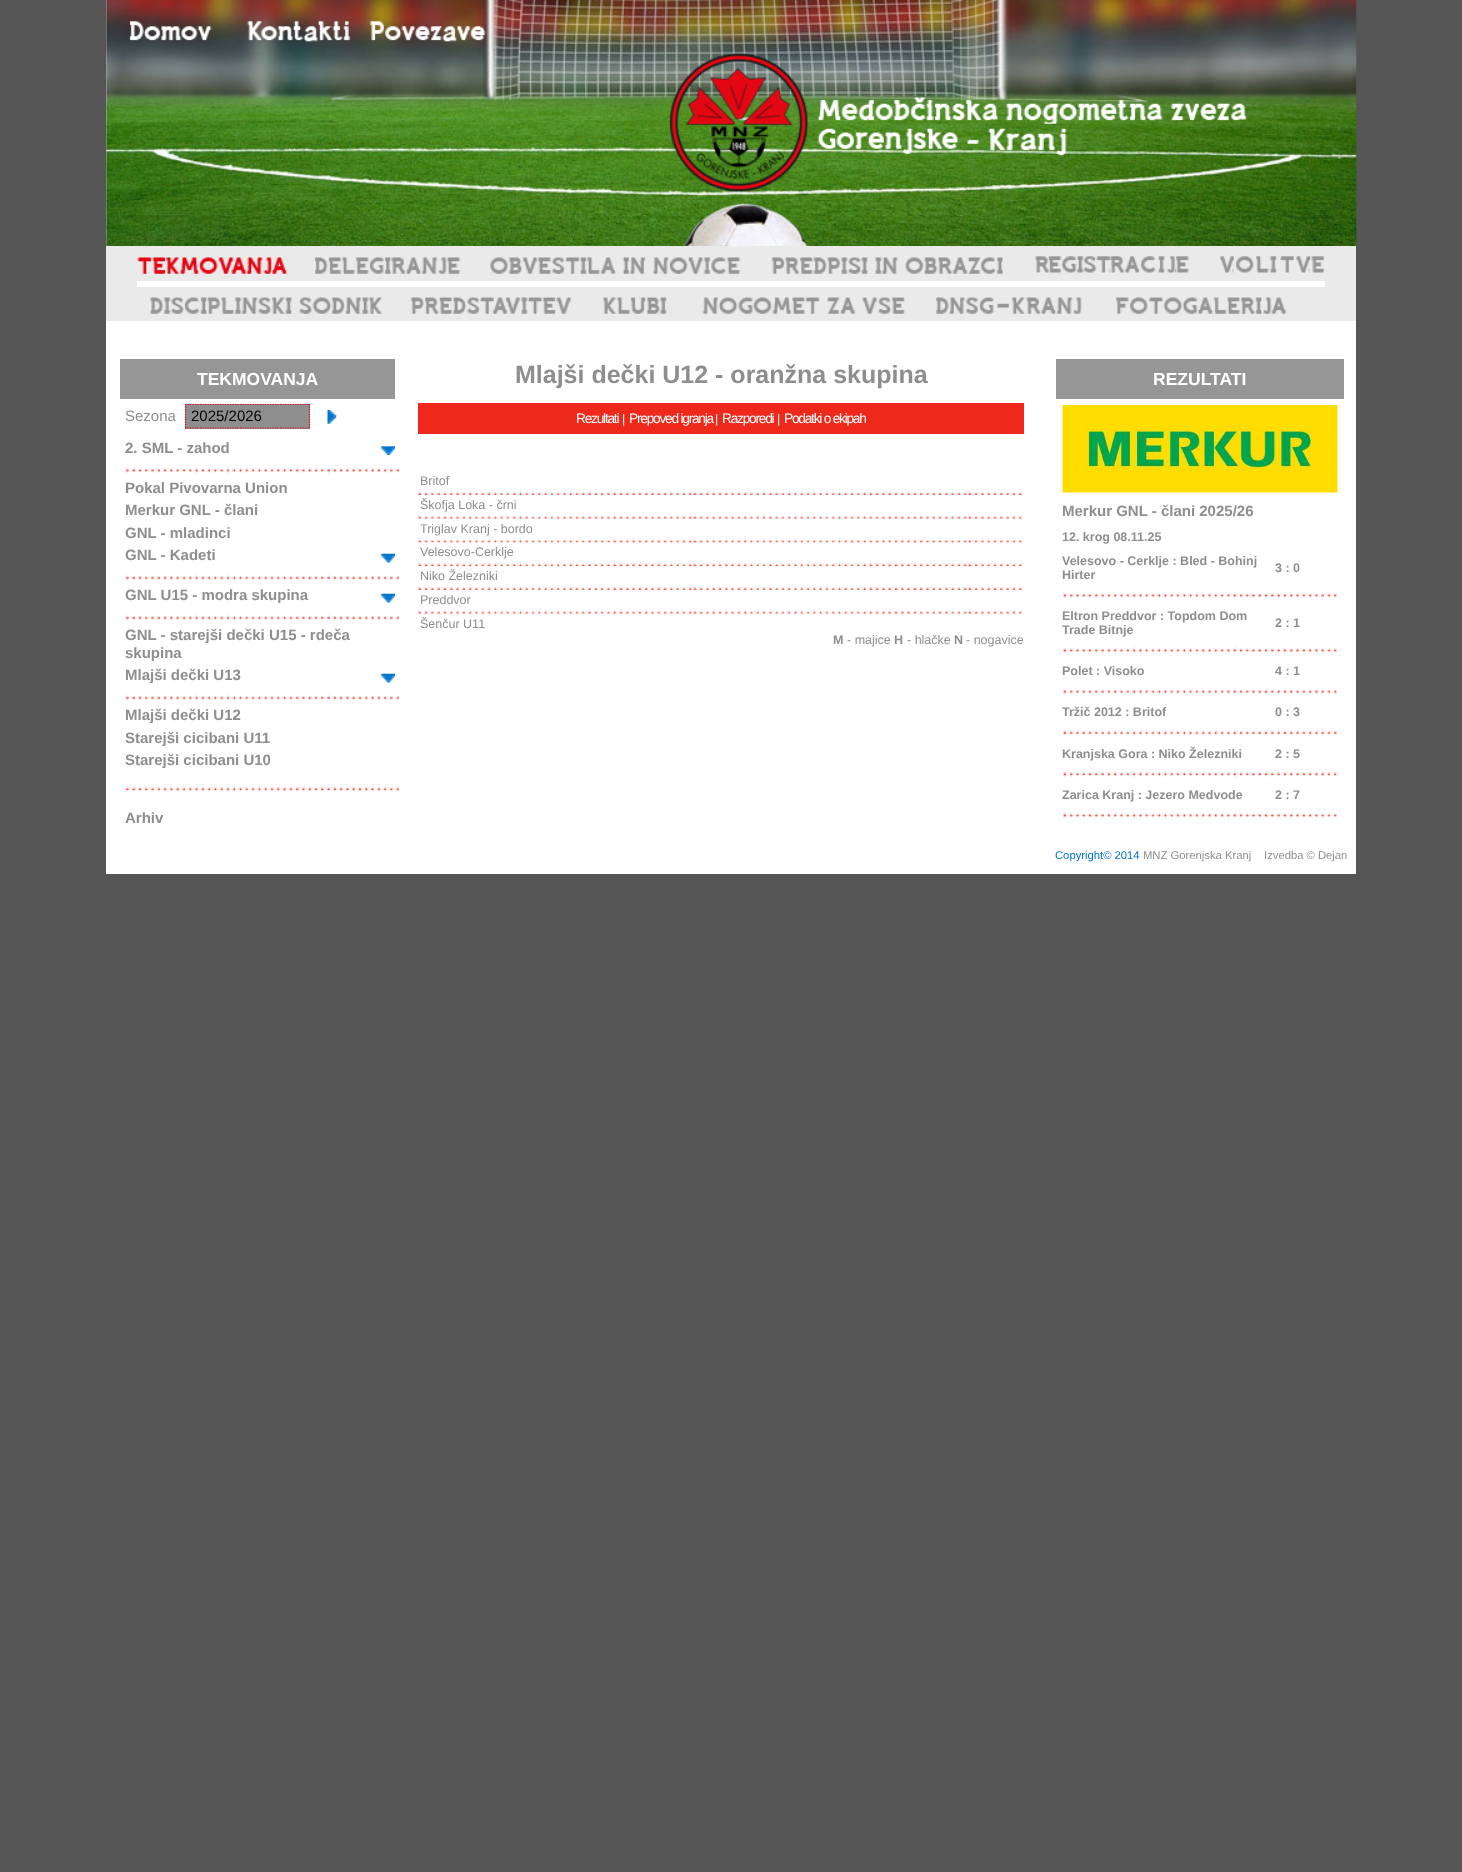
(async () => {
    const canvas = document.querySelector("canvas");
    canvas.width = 1462;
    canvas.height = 1872;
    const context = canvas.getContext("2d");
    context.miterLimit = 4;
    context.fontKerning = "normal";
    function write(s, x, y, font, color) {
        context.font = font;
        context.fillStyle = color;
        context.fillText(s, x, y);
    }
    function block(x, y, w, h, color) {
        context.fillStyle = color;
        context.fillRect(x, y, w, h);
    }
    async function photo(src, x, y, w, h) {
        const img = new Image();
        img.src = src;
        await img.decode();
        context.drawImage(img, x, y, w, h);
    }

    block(0, 0, 1462, 1872, "rgb(86, 86, 86)");
    block(106, 0, 1250, 874, "rgb(255, 255, 255)");
    await photo("media/1.png", 106, 0, 1251, 247);
    await photo("media/2.png", 669, 53, 578, 139);
    await photo("media/3.png", 129, 21, 83, 20);
    await photo("media/4.png", 247, 21, 104, 21);
    await photo("media/5.png", 369, 21, 117, 21);
    block(106, 246, 1250, 75, "rgb(234, 234, 234)");
    await photo("media/6.png", 137, 257, 150, 17);
    await photo("media/7.png", 315, 257, 146, 17);
    await photo("media/8.png", 490, 257, 251, 17);
    await photo("media/9.png", 771, 257, 232, 17);
    await photo("media/10.png", 1035, 256, 155, 17);
    await photo("media/11.png", 1220, 256, 104, 17);
    block(137, 281, 1188, 6, "rgb(255, 255, 255)");
    await photo("media/12.png", 150, 297, 232, 17);
    await photo("media/13.png", 411, 297, 161, 17);
    await photo("media/14.png", 602, 297, 65, 17);
    await photo("media/15.png", 702, 297, 203, 17);
    await photo("media/16.png", 936, 297, 146, 17);
    await photo("media/17.png", 1116, 297, 171, 17);
    block(120, 359, 275, 40, "rgb(150, 150, 150)");
    write("TEKMOVANJA", 197, 385, "bold 17.5px Liberation Sans", "rgb(255, 255, 255)");
    write("Sezona", 125, 421, "15px Liberation Sans", "rgb(142, 142, 142)");
    block(185, 404, 125, 25, "rgb(142, 142, 142)");
    context.beginPath();
    context.moveTo(185, 404.5);
    context.lineTo(310, 404.5);
    context.strokeStyle = "rgb(227, 6, 19)";
    context.lineWidth = 1.2;
    context.setLineDash([1.25, 1.25]);
    context.stroke();
    context.beginPath();
    context.moveTo(309.5, 404);
    context.lineTo(309.5, 429);
    context.stroke();
    context.beginPath();
    context.moveTo(185, 428);
    context.lineTo(310, 428);
    context.stroke();
    context.beginPath();
    context.moveTo(185.5, 404);
    context.lineTo(185.5, 429);
    context.stroke();
    write("2025/2026", 191, 421, "15px Liberation Sans", "rgb(0, 0, 0)");
    await photo("media/18.png", 327, 410, 10, 14);
    write("2. SML - zahod", 125, 453, "bold 15px Liberation Sans", "rgb(142, 142, 142)");
    await photo("media/19.png", 381, 446, 14, 9);
    await photo("media/20.png", 125, 466, 275, 8);
    write("Pokal Pivovarna Union", 125, 493, "bold 15px Liberation Sans", "rgb(142, 142, 142)");
    write("Merkur GNL - člani", 125, 515, "bold 15px Liberation Sans", "rgb(142, 142, 142)");
    write("GNL - mladinci", 125, 538, "bold 15px Liberation Sans", "rgb(142, 142, 142)");
    write("GNL - Kadeti", 125, 560, "bold 15px Liberation Sans", "rgb(142, 142, 142)");
    await photo("media/21.png", 381, 553, 14, 10);
    await photo("media/22.png", 125, 574, 275, 7);
    write("GNL U15 - modra skupina", 125, 600, "bold 15px Liberation Sans", "rgb(142, 142, 142)");
    await photo("media/21.png", 381, 593, 14, 10);
    await photo("media/22.png", 125, 614, 275, 7);
    write("GNL - starejši dečki U15 - rdeča", 125, 640, "bold 15px Liberation Sans", "rgb(142, 142, 142)");
    write("skupina", 125, 658, "bold 15px Liberation Sans", "rgb(142, 142, 142)");
    write("Mlajši dečki U13", 125, 680, "bold 15px Liberation Sans", "rgb(142, 142, 142)");
    await photo("media/21.png", 381, 673, 14, 10);
    await photo("media/22.png", 125, 694, 275, 7);
    write("Mlajši dečki U12", 125, 720, "bold 15px Liberation Sans", "rgb(142, 142, 142)");
    write("Starejši cicibani U11", 125, 743, "bold 15px Liberation Sans", "rgb(142, 142, 142)");
    write("Starejši cicibani U10", 125, 765, "bold 15px Liberation Sans", "rgb(142, 142, 142)");
    await photo("media/23.png", 125, 785, 275, 8);
    write("Arhiv", 125, 823, "bold 15px Liberation Sans", "rgb(142, 142, 142)");
    write("Mlajši dečki U12 - oranžna skupina", 515, 383, "bold 25px Liberation Sans", "rgb(142, 142, 142)");
    block(418, 403, 606, 31, "rgb(238, 40, 26)");
    context.letterSpacing = "-1.25px";
    write("Rezultati", 576, 423, "13.75px Liberation Sans", "rgb(255, 255, 255)");
    context.letterSpacing = "0px";
    write("|", 622, 423, "12.5px Liberation Sans", "rgb(255, 255, 255)");
    context.letterSpacing = "-1.25px";
    write("Prepoved igranja", 629, 423, "13.75px Liberation Sans", "rgb(255, 255, 255)");
    context.letterSpacing = "0px";
    write("|", 715, 423, "12.5px Liberation Sans", "rgb(255, 255, 255)");
    context.letterSpacing = "-1.25px";
    write("Razporedi", 722, 423, "13.75px Liberation Sans", "rgb(255, 255, 255)");
    context.letterSpacing = "0px";
    write("|", 777, 423, "12.5px Liberation Sans", "rgb(255, 255, 255)");
    context.letterSpacing = "-1.25px";
    write("Podatki o ekipah", 784, 423, "13.75px Liberation Sans", "rgb(255, 255, 255)");
    context.letterSpacing = "0px";
    write("Britof", 420, 485, "12.5px Liberation Sans", "rgb(142, 142, 142)");
    await photo("media/24.png", 417, 490, 605, 5);
    write("Škofja Loka - črni", 420, 509, "12.5px Liberation Sans", "rgb(142, 142, 142)");
    await photo("media/25.png", 417, 514, 605, 5);
    write("Triglav Kranj - bordo", 420, 533, "12.5px Liberation Sans", "rgb(142, 142, 142)");
    await photo("media/26.png", 417, 537, 605, 6);
    write("Velesovo-Cerklje", 420, 556, "12.5px Liberation Sans", "rgb(142, 142, 142)");
    await photo("media/27.png", 417, 561, 605, 6);
    write("Niko Železniki", 420, 580, "12.5px Liberation Sans", "rgb(142, 142, 142)");
    await photo("media/28.png", 417, 585, 605, 5);
    write("Preddvor", 420, 604, "12.5px Liberation Sans", "rgb(142, 142, 142)");
    await photo("media/29.png", 417, 609, 605, 5);
    write("Šenčur U11", 420, 628, "12.5px Liberation Sans", "rgb(142, 142, 142)");
    write("M", 833, 644, "bold 12.5px Liberation Sans", "rgb(142, 142, 142)");
    write("- majice", 847, 644, "12.5px Liberation Sans", "rgb(142, 142, 142)");
    write("H", 894, 644, "bold 12.5px Liberation Sans", "rgb(142, 142, 142)");
    write("- hlačke", 907, 644, "12.5px Liberation Sans", "rgb(142, 142, 142)");
    write("N", 954, 644, "bold 12.5px Liberation Sans", "rgb(142, 142, 142)");
    write("- nogavice", 966, 644, "12.5px Liberation Sans", "rgb(142, 142, 142)");
    block(1056, 359, 288, 40, "rgb(150, 150, 150)");
    write("REZULTATI", 1153, 385, "bold 17.5px Liberation Sans", "rgb(255, 255, 255)");
    await photo("media/30.png", 1062, 405, 276, 88);
    write("Merkur GNL - člani 2025/26", 1062, 516, "bold 15px Liberation Sans", "rgb(142, 142, 142)");
    write("12. krog 08.11.25", 1062, 541, "bold 12.5px Liberation Sans", "rgb(142, 142, 142)");
    write("Velesovo - Cerklje : Bled - Bohinj", 1062, 565, "bold 12.5px Liberation Sans", "rgb(142, 142, 142)");
    write("Hirter", 1062, 579, "bold 12.5px Liberation Sans", "rgb(142, 142, 142)");
    write("3 : 0", 1275, 572, "bold 12.5px Liberation Sans", "rgb(142, 142, 142)");
    await photo("media/31.png", 1062, 591, 276, 8);
    write("Eltron Preddvor : Topdom Dom", 1062, 620, "bold 12.5px Liberation Sans", "rgb(142, 142, 142)");
    write("Trade Bitnje", 1062, 634, "bold 12.5px Liberation Sans", "rgb(142, 142, 142)");
    write("2 : 1", 1275, 627, "bold 12.5px Liberation Sans", "rgb(142, 142, 142)");
    await photo("media/31.png", 1062, 646, 276, 8);
    write("Polet : Visoko", 1062, 675, "bold 12.5px Liberation Sans", "rgb(142, 142, 142)");
    write("4 : 1", 1275, 675, "bold 12.5px Liberation Sans", "rgb(142, 142, 142)");
    await photo("media/32.png", 1062, 687, 276, 8);
    write("Tržič 2012 : Britof", 1062, 716, "bold 12.5px Liberation Sans", "rgb(142, 142, 142)");
    write("0 : 3", 1275, 716, "bold 12.5px Liberation Sans", "rgb(142, 142, 142)");
    await photo("media/33.png", 1062, 729, 276, 7);
    write("Kranjska Gora : Niko Železniki", 1062, 758, "bold 12.5px Liberation Sans", "rgb(142, 142, 142)");
    write("2 : 5", 1275, 758, "bold 12.5px Liberation Sans", "rgb(142, 142, 142)");
    await photo("media/34.png", 1062, 770, 276, 8);
    write("Zarica Kranj : Jezero Medvode", 1062, 799, "bold 12.5px Liberation Sans", "rgb(142, 142, 142)");
    write("2 : 7", 1275, 799, "bold 12.5px Liberation Sans", "rgb(142, 142, 142)");
    await photo("media/31.png", 1062, 811, 276, 8);
    write("Copyright© 2014", 1055, 859, "11.25px Liberation Sans", "rgb(0, 115, 204)");
    write("MNZ Gorenjska Kranj", 1143, 859, "11.25px Liberation Sans", "rgb(142, 142, 142)");
    write("Izvedba © Dejan", 1264, 859, "11.25px Liberation Sans", "rgb(142, 142, 142)");
})();
